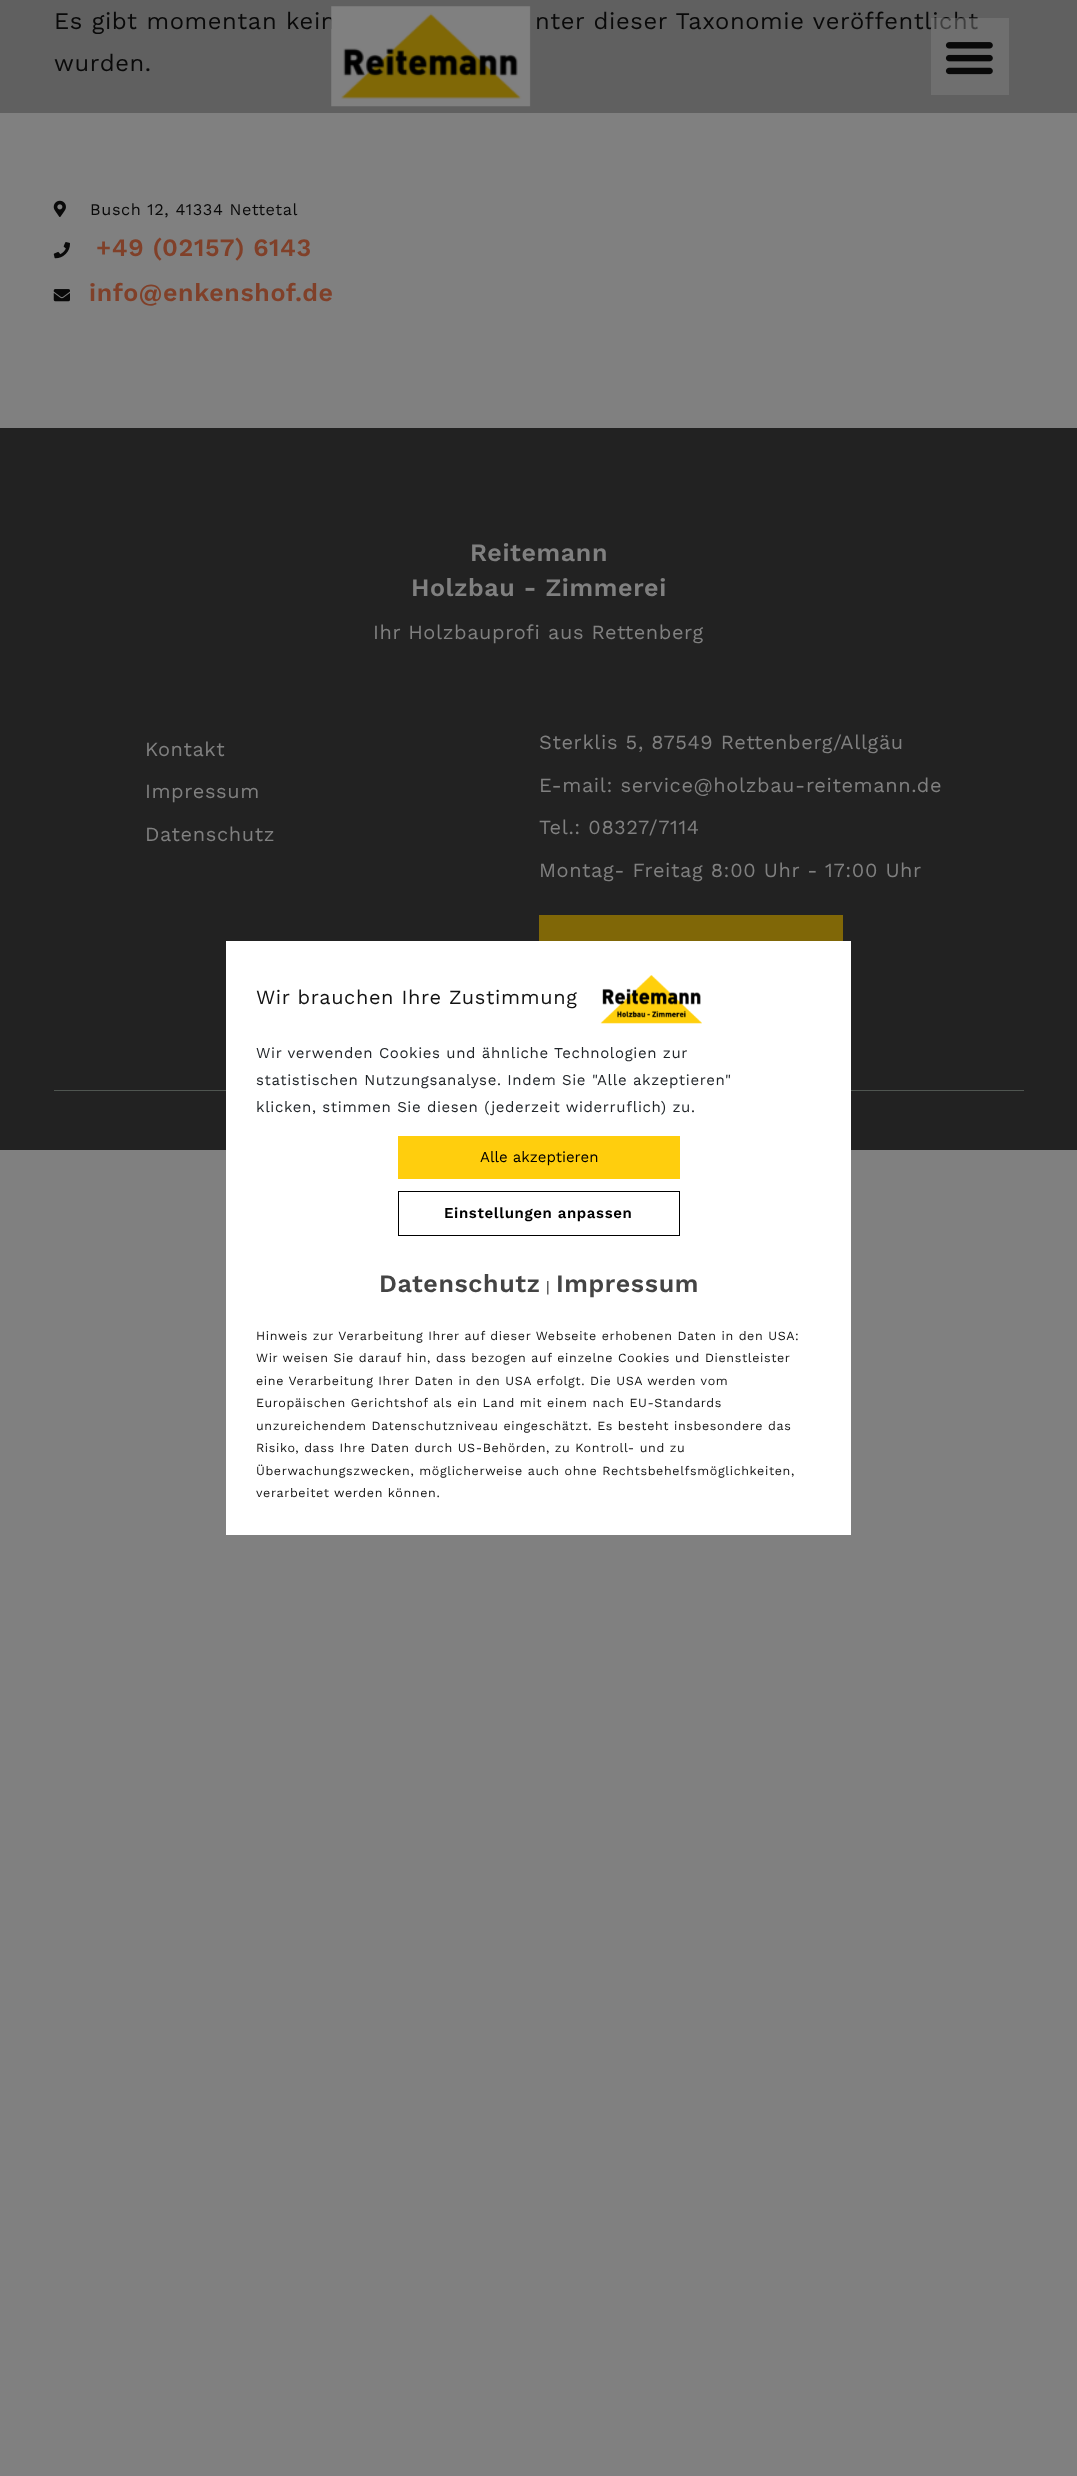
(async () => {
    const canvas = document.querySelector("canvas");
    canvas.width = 1077;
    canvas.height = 2476;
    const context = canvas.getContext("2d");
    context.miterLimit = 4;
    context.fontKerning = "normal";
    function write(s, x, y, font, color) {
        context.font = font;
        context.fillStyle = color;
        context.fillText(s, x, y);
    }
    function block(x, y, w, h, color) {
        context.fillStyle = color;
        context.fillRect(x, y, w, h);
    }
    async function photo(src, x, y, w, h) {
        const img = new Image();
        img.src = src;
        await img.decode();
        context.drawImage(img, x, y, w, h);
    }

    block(0, 0, 1077, 2476, "rgb(128, 128, 128)");
    block(0, 0, 1077, 113, "rgb(96, 96, 96)");
    context.letterSpacing = "0.62px";
    write("Es gibt momentan kein", 54, 29, "23.75px Work Sans", "rgb(9, 9, 9)");
    await photo("media/1.png", 331, 6, 200, 101);
    write("nter dieser Taxonomie veröffentlicht", 535, 29, "23.75px Work Sans", "rgb(9, 9, 9)");
    block(931, 18, 78, 77, "rgba(128, 128, 128, 0.46)");
    await photo("media/2.png", 945, 42, 48, 33);
    write("wurden.", 54, 71, "23.75px Work Sans", "rgb(9, 9, 9)");
    await photo("media/3.png", 53, 200, 13, 17);
    write("Busch 12, 41334 Nettetal", 90, 215, "16.25px Work Sans", "rgb(9, 9, 9)");
    await photo("media/4.png", 53, 242, 17, 17);
    write("+49 (02157) 6143", 96, 256, "600 25px Work Sans", "rgb(128, 64, 41)");
    await photo("media/5.png", 53, 289, 17, 13);
    write("info@enkenshof.de", 89, 301, "600 25px Work Sans", "rgb(128, 64, 41)");
    block(0, 428, 1077, 722, "rgb(34, 34, 34)");
    write("Reitemann", 470, 561, "600 25px Work Sans", "rgb(128, 128, 128)");
    write("Holzbau - Zimmerei", 411, 596, "600 25px Work Sans", "rgb(128, 128, 128)");
    write("Ihr Holzbauprofi aus Rettenberg", 373, 639, "20px Work Sans", "rgb(128, 128, 128)");
    write("Kontakt", 145, 756, "20px Work Sans", "rgb(128, 128, 128)");
    write("Impressum", 145, 798, "20px Work Sans", "rgb(128, 128, 128)");
    write("Datenschutz", 145, 841, "20px Work Sans", "rgb(128, 128, 128)");
    write("Sterklis 5, 87549 Rettenberg/Allgäu", 539, 749, "20px Work Sans", "rgb(128, 128, 128)");
    write("E-mail: service@holzbau-reitemann.de", 539, 792, "20px Work Sans", "rgb(128, 128, 128)");
    write("Tel.: 08327/7114", 539, 834, "20px Work Sans", "rgb(128, 128, 128)");
    write("Montag- Freitag 8:00 Uhr - 17:00 Uhr", 539, 877, "20px Work Sans", "rgb(128, 128, 128)");
    block(539, 915, 304, 26, "rgb(128, 103, 7)");
    block(54, 1090, 970, 1, "rgb(79, 85, 80)");
    block(226, 941, 625, 594, "rgb(255, 255, 255)");
    write("Wir brauchen Ihre Zustimmung", 256, 1004, "20px Work Sans", "rgb(18, 18, 18)");
    await photo("media/6.png", 600, 975, 102, 49);
    write("Wir verwenden Cookies und ähnliche Technologien zur", 256, 1058, "15px Work Sans", "rgb(33, 37, 41)");
    write("statistischen Nutzungsanalyse. Indem Sie \"Alle akzeptieren\"", 256, 1085, "15px Work Sans", "rgb(33, 37, 41)");
    write("klicken, stimmen Sie diesen (jederzeit widerruflich) zu.", 256, 1112, "15px Work Sans", "rgb(33, 37, 41)");
    block(398, 1136, 282, 43, "rgb(255, 206, 13)");
    context.letterSpacing = "0px";
    write("Alle akzeptieren", 480, 1162, "15px Work Sans", "rgb(0, 0, 0)");
    context.strokeStyle = "rgb(0, 0, 0)";
    context.strokeRect(398.5, 1191.5, 281, 44);
    context.letterSpacing = "0.62px";
    write("Einstellungen anpassen", 444, 1218, "600 15px Work Sans", "rgb(0, 0, 0)");
    write("Datenschutz", 379, 1292, "600 25px Work Sans", "rgb(68, 68, 68)");
    write("|", 546, 1292, "15px Work Sans", "rgb(18, 18, 18)");
    write("Impressum", 556, 1292, "600 25px Work Sans", "rgb(68, 68, 68)");
    write("Hinweis zur Verarbeitung Ihrer auf dieser Webseite erhobenen Daten in den USA:", 256, 1340, "12.5px Work Sans", "rgb(18, 18, 18)");
    write("Wir weisen Sie darauf hin, dass bezogen auf einzelne Cookies und Dienstleister", 256, 1362, "12.5px Work Sans", "rgb(18, 18, 18)");
    write("eine Verarbeitung Ihrer Daten in den USA erfolgt. Die USA werden vom", 256, 1385, "12.5px Work Sans", "rgb(18, 18, 18)");
    write("Europäischen Gerichtshof als ein Land mit einem nach EU-Standards", 256, 1407, "12.5px Work Sans", "rgb(18, 18, 18)");
    write("unzureichendem Datenschutzniveau eingeschätzt. Es besteht insbesondere das", 256, 1430, "12.5px Work Sans", "rgb(18, 18, 18)");
    write("Risiko, dass Ihre Daten durch US-Behörden, zu Kontroll- und zu", 256, 1452, "12.5px Work Sans", "rgb(18, 18, 18)");
    write("Überwachungszwecken, möglicherweise auch ohne Rechtsbehelfsmöglichkeiten,", 256, 1475, "12.5px Work Sans", "rgb(18, 18, 18)");
    write("verarbeitet werden können.", 256, 1497, "12.5px Work Sans", "rgb(18, 18, 18)");
})();
